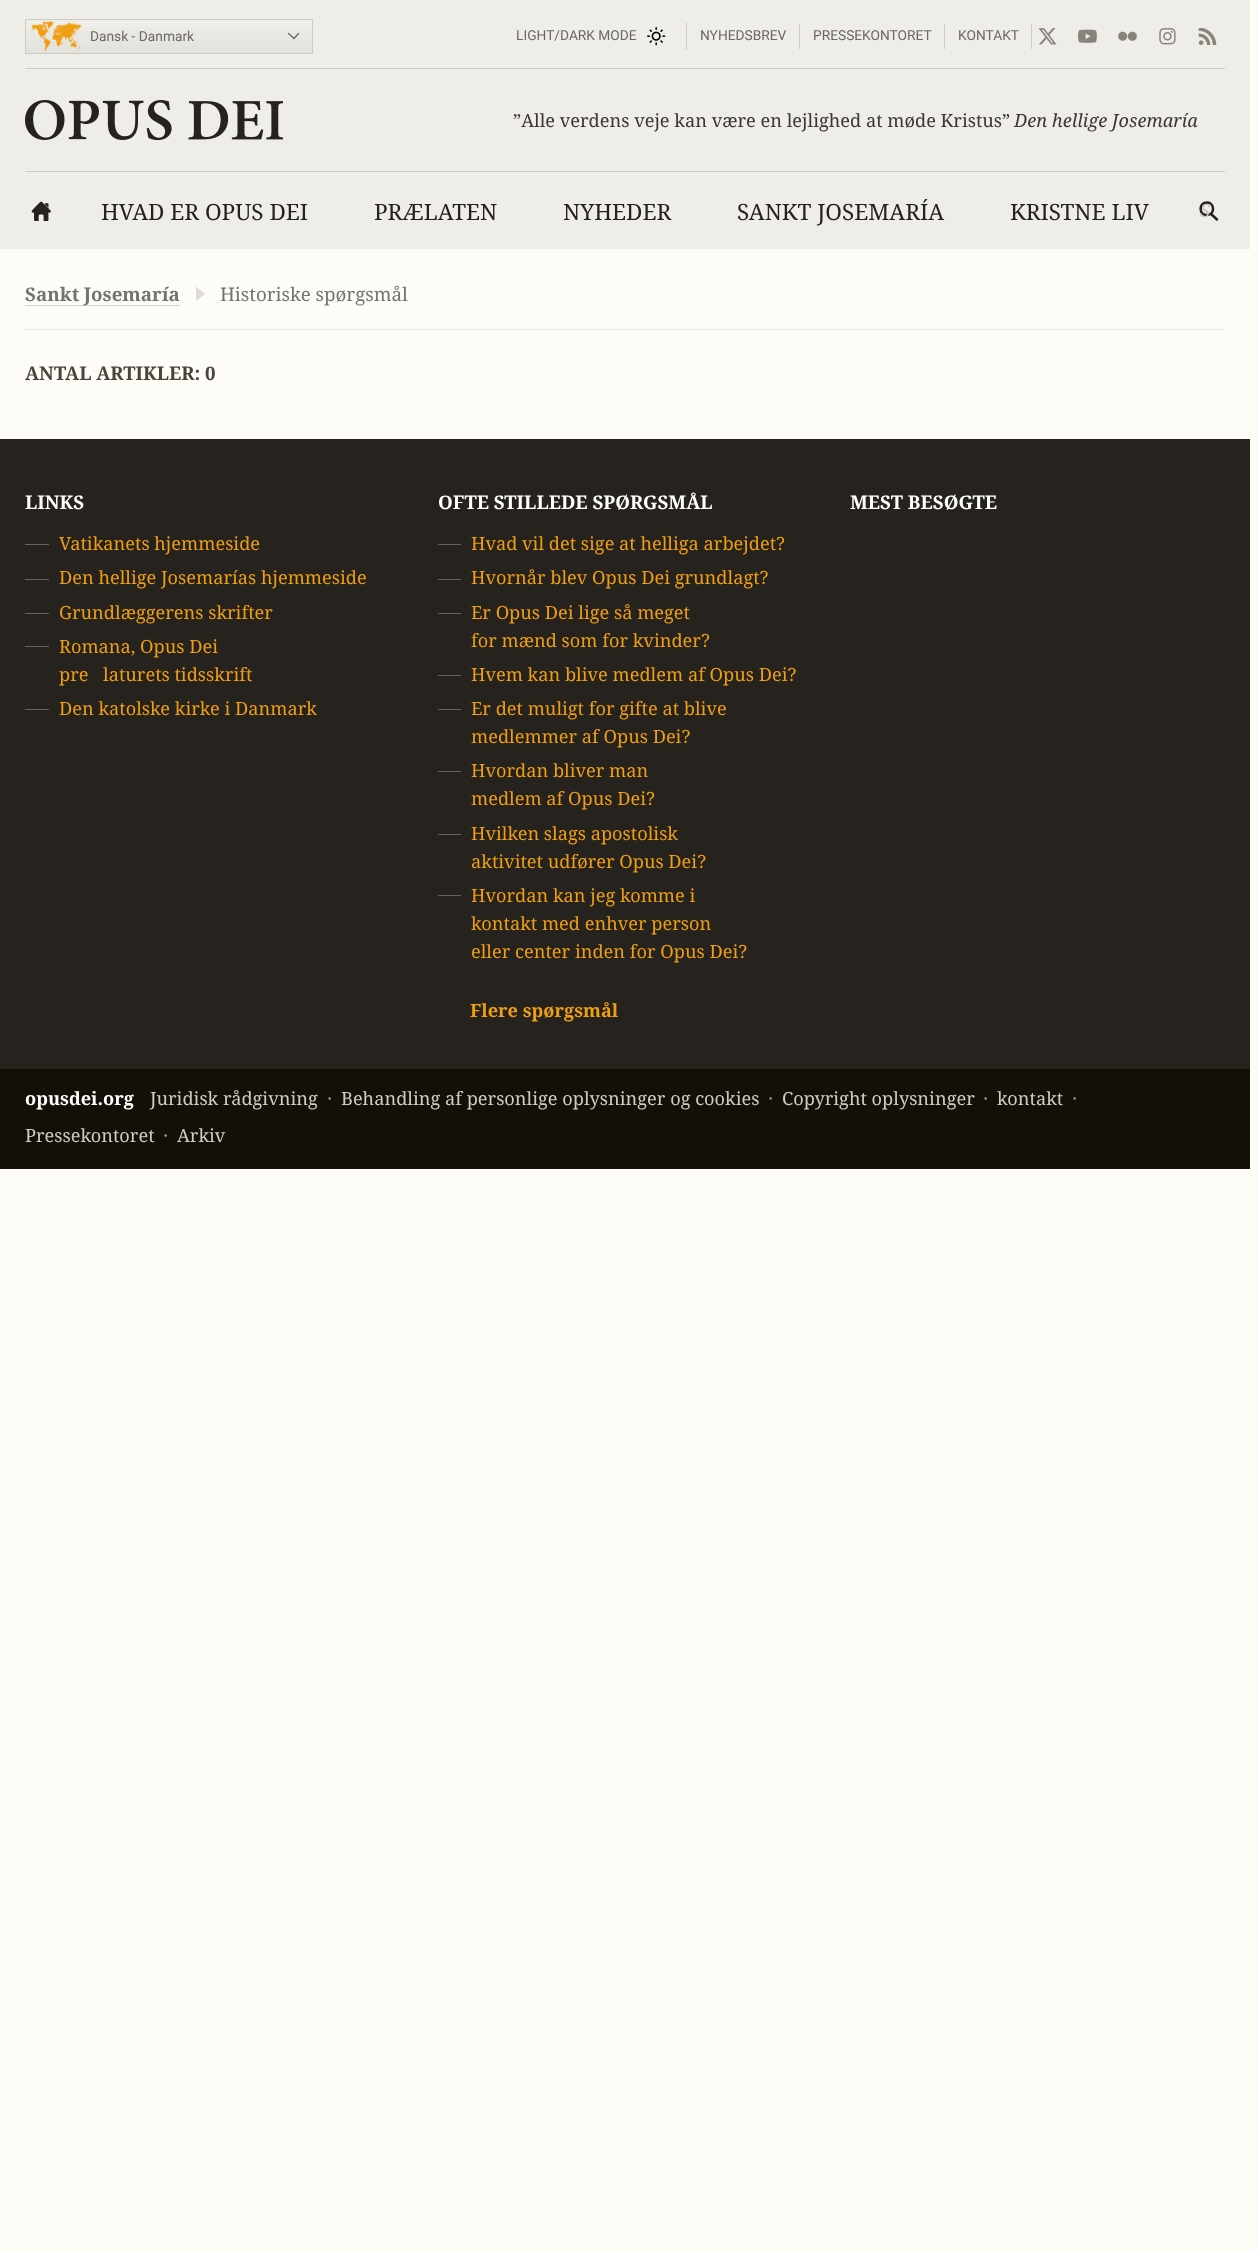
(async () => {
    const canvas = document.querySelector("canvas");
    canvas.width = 1258;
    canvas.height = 2252;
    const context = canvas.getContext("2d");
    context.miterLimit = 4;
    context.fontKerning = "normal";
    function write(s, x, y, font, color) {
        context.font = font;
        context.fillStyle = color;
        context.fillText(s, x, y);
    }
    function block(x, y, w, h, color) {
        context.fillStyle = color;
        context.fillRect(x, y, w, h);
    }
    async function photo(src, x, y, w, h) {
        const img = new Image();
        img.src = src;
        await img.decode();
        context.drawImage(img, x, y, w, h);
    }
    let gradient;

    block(0, 0, 1258, 2252, "rgb(254, 252, 246)");
    block(0, 0, 1250, 249, "rgb(239, 237, 231)");
    block(25, 68, 1200, 1, "rgb(206, 203, 196)");
    gradient = context.createLinearGradient(169, 20, 169, 53);
    gradient.addColorStop(0, "rgb(239, 237, 231)");
    gradient.addColorStop(1, "rgb(227, 225, 219)");
    context.fillStyle = gradient;
    context.fillRect(26, 27, 286, 26);
    context.strokeStyle = "rgb(206, 203, 196)";
    context.strokeRect(25.5, 19.5, 287, 34);
    await photo("media/1.png", 31, 21, 51, 30);
    context.save();
    context.beginPath();
    context.rect(288, 33, 12, 7);
    context.clip();
    context.beginPath();
    context.moveTo(298.5, 33.5);
    context.lineTo(294, 38.5);
    context.lineTo(288.5, 33.5);
    context.strokeStyle = "rgb(107, 104, 100)";
    context.lineWidth = 1.3;
    context.lineCap = "round";
    context.lineJoin = "round";
    context.stroke();
    context.restore();
    write("Dansk - Danmark", 90, 41, "13.75px Roboto", "rgb(107, 104, 100)");
    block(686, 23, 1, 27, "rgb(206, 203, 196)");
    write("LIGHT/DARK MODE", 516, 40, "13.75px Roboto", "rgb(107, 104, 100)");
    await photo("media/2.png", 647, 27, 19, 19);
    block(799, 24, 1, 25, "rgb(206, 203, 196)");
    write("NYHEDSBREV", 700, 40, "13.75px Roboto", "rgb(107, 104, 100)");
    block(944, 24, 1, 25, "rgb(206, 203, 196)");
    write("PRESSEKONTORET", 813, 40, "13.75px Roboto", "rgb(107, 104, 100)");
    block(1031, 24, 1, 25, "rgb(206, 203, 196)");
    write("KONTAKT", 958, 40, "13.75px Roboto", "rgb(107, 104, 100)");
    await photo("media/3.png", 1038, 28, 19, 17);
    await photo("media/4.png", 1078, 29, 19, 14);
    await photo("media/5.png", 1118, 31, 19, 10);
    await photo("media/6.png", 1159, 28, 17, 17);
    await photo("media/7.png", 1198, 28, 19, 17);
    block(25, 171, 1200, 1, "rgb(206, 203, 196)");
    await photo("media/8.png", 25, 100, 258, 40);
    write("”Alle verdens veje kan være en lejlighed at møde Kristus”", 513, 127, "18.2px Droid Serif", "rgb(58, 54, 50)");
    write("Den hellige Josemaría", 1014, 127, "italic 18.2px Droid Serif", "rgb(58, 54, 50)");
    await photo("media/9.png", 31, 201, 20, 20);
    write("HVAD ER OPUS DEI", 101, 220, "22.5px Droid Serif", "rgb(38, 34, 30)");
    write("PRÆLATEN", 374, 220, "22.5px Droid Serif", "rgb(38, 34, 30)");
    write("NYHEDER", 563, 220, "22.5px Droid Serif", "rgb(38, 34, 30)");
    write("SANKT JOSEMARÍA", 737, 220, "22.5px Droid Serif", "rgb(38, 34, 30)");
    write("KRISTNE LIV", 1010, 220, "22.5px Droid Serif", "rgb(38, 34, 30)");
    context.beginPath();
    context.moveTo(1211, 214);
    context.lineTo(1217, 219.5);
    context.moveTo(1207, 202.5);
    context.bezierCurveTo(1215, 202.5, 1215, 215, 1207, 215);
    context.bezierCurveTo(1198.5, 215, 1198.5, 202.5, 1207, 202.5);
    context.closePath();
    context.strokeStyle = "rgb(38, 34, 30)";
    context.lineWidth = 2.5;
    context.lineCap = "round";
    context.stroke();
    write("S", 1200, 217, "italic 18px Droid Serif", "rgb(200, 197, 192)");
    block(25, 329, 1200, 1, "rgb(236, 233, 227)");
    block(25, 305, 155, 1, "rgb(214, 213, 209)");
    write("Sankt Josemaría", 25, 301, "bold 18.75px Droid Serif", "rgb(115, 115, 115)");
    context.fillStyle = "rgb(223, 220, 214)";
    context.beginPath();
    context.moveTo(196, 286.5);
    context.lineTo(205, 294);
    context.lineTo(196, 301);
    context.closePath();
    context.fill();
    write("Historiske spørgsmål", 220, 301, "18.75px Droid Serif", "rgb(115, 115, 115)");
    write("ANTAL ARTIKLER: 0", 25, 380, "bold 18.75px Droid Serif", "rgb(75, 68, 58)");
    block(0, 439, 1250, 630, "rgb(38, 34, 30)");
    write("LINKS", 25, 509, "bold 18.75px Droid Serif", "rgb(255, 255, 255)");
    block(25, 544, 24, 1, "rgb(101, 98, 95)");
    write("Vatikanets hjemmeside", 59, 550, "18.2px Droid Serif", "rgb(239, 159, 19)");
    block(25, 579, 24, 1, "rgb(101, 98, 95)");
    write("Den hellige Josemarías hjemmeside", 59, 584, "18.2px Droid Serif", "rgb(239, 159, 19)");
    block(25, 613, 24, 1, "rgb(101, 98, 95)");
    write("Grundlæggerens skrifter", 59, 619, "18.2px Droid Serif", "rgb(239, 159, 19)");
    block(25, 646, 24, 1, "rgb(101, 98, 95)");
    write("Romana, Opus Dei", 59, 653, "18.2px Droid Serif", "rgb(239, 159, 19)");
    write("pre", 59, 681, "18.2px Droid Serif", "rgb(239, 159, 19)");
    write("laturets tidsskrift", 103, 681, "18.2px Droid Serif", "rgb(239, 159, 19)");
    block(25, 709, 24, 1, "rgb(101, 98, 95)");
    write("Den katolske kirke i Danmark", 59, 715, "18.2px Droid Serif", "rgb(239, 159, 19)");
    write("OFTE STILLEDE SPØRGSMÅL", 438, 509, "bold 18.75px Droid Serif", "rgb(255, 255, 255)");
    block(438, 544, 23, 1, "rgb(101, 98, 95)");
    write("Hvad vil det sige at helliga arbejdet?", 471, 550, "18.2px Droid Serif", "rgb(239, 159, 19)");
    block(438, 579, 23, 1, "rgb(101, 98, 95)");
    write("Hvornår blev Opus Dei grundlagt?", 471, 584, "18.2px Droid Serif", "rgb(239, 159, 19)");
    block(438, 613, 23, 1, "rgb(101, 98, 95)");
    write("Er Opus Dei lige så meget", 471, 619, "18.2px Droid Serif", "rgb(239, 159, 19)");
    write("for mænd som for kvinder?", 471, 647, "18.2px Droid Serif", "rgb(239, 159, 19)");
    block(438, 675, 23, 1, "rgb(101, 98, 95)");
    write("Hvem kan blive medlem af Opus Dei?", 471, 681, "18.2px Droid Serif", "rgb(239, 159, 19)");
    block(438, 709, 23, 1, "rgb(101, 98, 95)");
    write("Er det muligt for gifte at blive", 471, 715, "18.2px Droid Serif", "rgb(239, 159, 19)");
    write("medlemmer af Opus Dei?", 471, 743, "18.2px Droid Serif", "rgb(239, 159, 19)");
    block(438, 771, 23, 1, "rgb(101, 98, 95)");
    write("Hvordan bliver man", 471, 777, "18.2px Droid Serif", "rgb(239, 159, 19)");
    write("medlem af Opus Dei?", 471, 805, "18.2px Droid Serif", "rgb(239, 159, 19)");
    block(438, 834, 23, 1, "rgb(101, 98, 95)");
    write("Hvilken slags apostolisk", 471, 840, "18.2px Droid Serif", "rgb(239, 159, 19)");
    write("aktivitet udfører Opus Dei?", 471, 868, "18.2px Droid Serif", "rgb(239, 159, 19)");
    block(438, 895, 23, 1, "rgb(101, 98, 95)");
    write("Hvordan kan jeg komme i", 471, 902, "18.2px Droid Serif", "rgb(239, 159, 19)");
    write("kontakt med enhver person", 471, 930, "18.2px Droid Serif", "rgb(239, 159, 19)");
    write("eller center inden for Opus Dei?", 471, 958, "18.2px Droid Serif", "rgb(239, 159, 19)");
    write("Flere spørgsmål", 470, 1017, "bold 18.2px Droid Serif", "rgb(239, 159, 19)");
    write("MEST BESØGTE", 850, 509, "bold 18.75px Droid Serif", "rgb(255, 255, 255)");
    block(0, 1069, 1250, 100, "rgb(20, 15, 7)");
    write("Juridisk rådgivning", 150, 1105, "18.2px Droid Serif", "rgb(206, 204, 199)");
    write("·", 327, 1105, "18.2px Droid Serif", "rgb(164, 160, 152)");
    write("Behandling af personlige oplysninger og cookies", 341, 1105, "18.2px Droid Serif", "rgb(206, 204, 199)");
    write("·", 768, 1105, "18.2px Droid Serif", "rgb(164, 160, 152)");
    write("Copyright oplysninger", 782, 1105, "18.2px Droid Serif", "rgb(206, 204, 199)");
    write("·", 983, 1105, "18.2px Droid Serif", "rgb(164, 160, 152)");
    write("kontakt", 997, 1105, "18.2px Droid Serif", "rgb(206, 204, 199)");
    write("·", 1072, 1105, "18.2px Droid Serif", "rgb(164, 160, 152)");
    write("Pressekontoret", 25, 1142, "18.2px Droid Serif", "rgb(206, 204, 199)");
    write("·", 163, 1142, "18.2px Droid Serif", "rgb(164, 160, 152)");
    write("Arkiv", 177, 1142, "18.2px Droid Serif", "rgb(206, 204, 199)");
    write("opusdei.org", 25, 1105, "bold 18.2px Droid Serif", "rgb(255, 255, 255)");
})();
